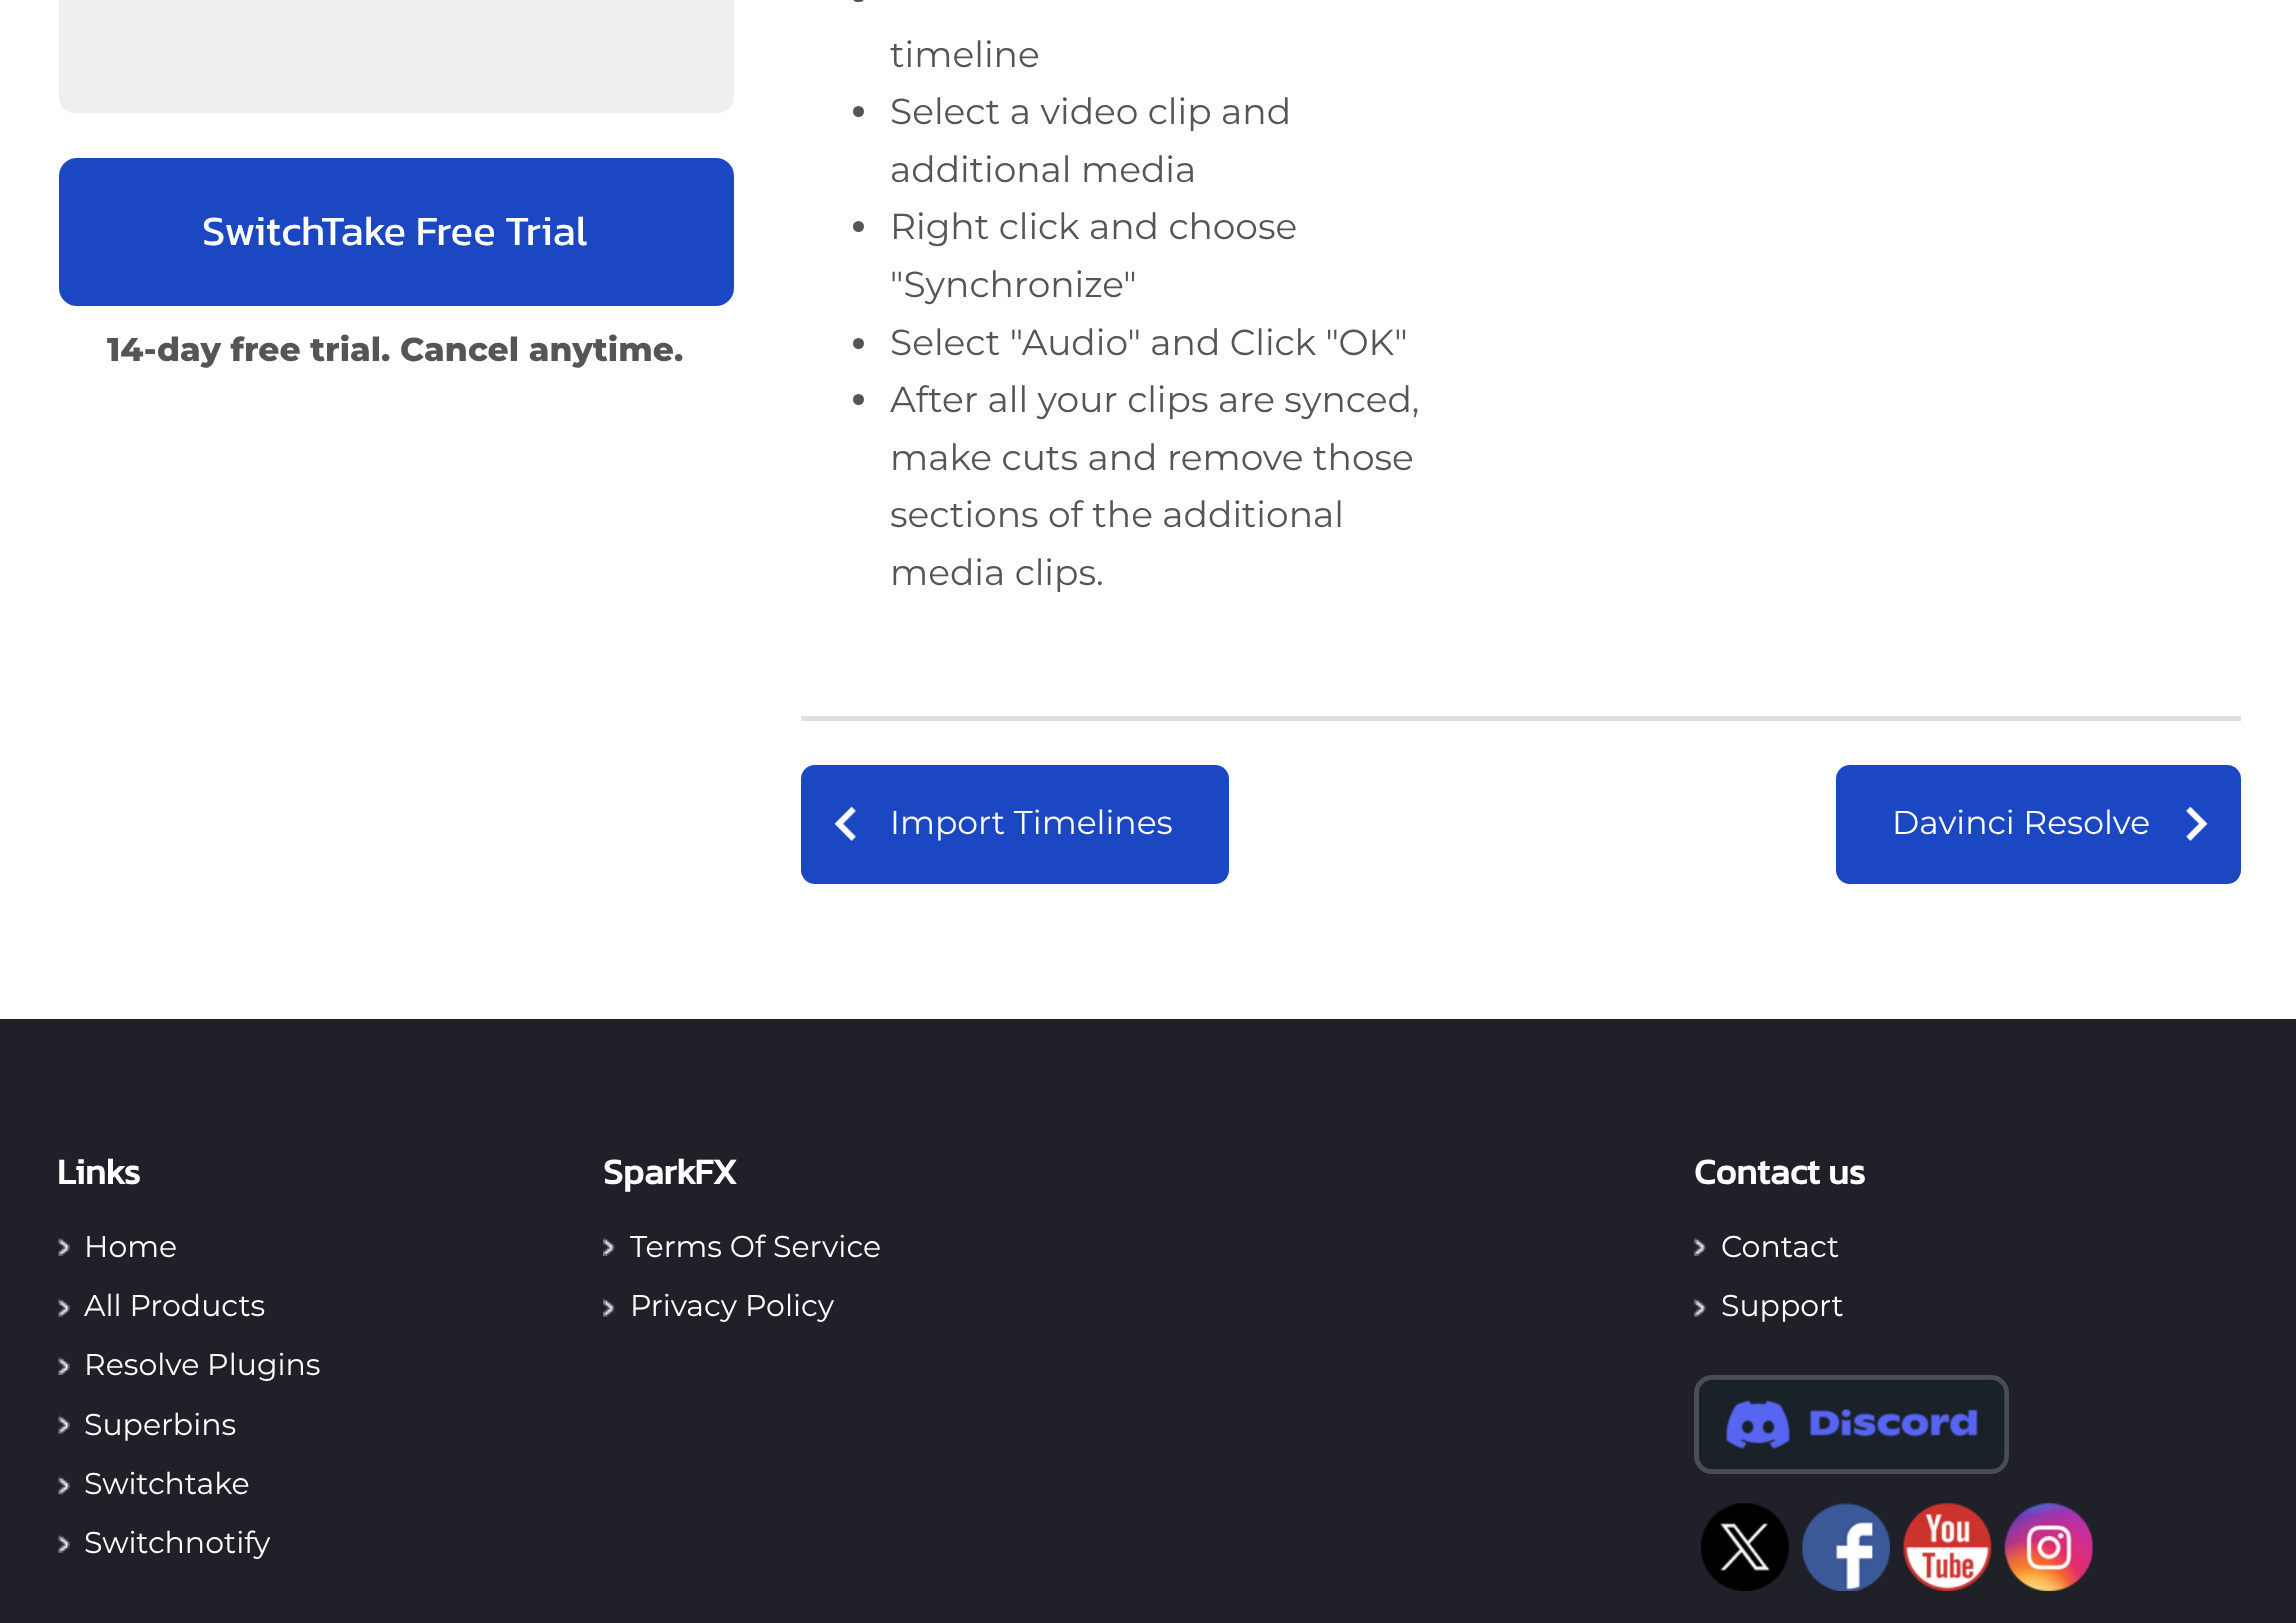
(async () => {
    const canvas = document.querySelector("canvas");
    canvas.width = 2296;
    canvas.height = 1623;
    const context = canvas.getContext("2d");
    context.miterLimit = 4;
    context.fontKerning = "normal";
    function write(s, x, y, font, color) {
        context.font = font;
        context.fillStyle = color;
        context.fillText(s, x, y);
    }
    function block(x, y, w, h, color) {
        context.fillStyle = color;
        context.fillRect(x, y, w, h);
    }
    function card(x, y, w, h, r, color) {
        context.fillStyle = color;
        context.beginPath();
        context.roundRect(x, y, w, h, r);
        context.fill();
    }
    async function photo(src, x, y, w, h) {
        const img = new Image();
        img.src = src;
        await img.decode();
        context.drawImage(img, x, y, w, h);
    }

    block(0, 0, 2296, 1623, "rgb(255, 255, 255)");
    card(59, -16, 675, 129, 16, "rgb(239, 239, 239)");
    card(59, 158, 675, 148, 18, "rgb(27, 71, 194)");
    write("SwitchTake Free Trial", 202, 245, "42px Kanit", "rgb(255, 255, 255)");
    write("14-day free trial. Cancel anytime.", 107, 361, "100 33px Montserrat", "rgb(85, 85, 85)");
    card(853, -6, 11, 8, 5.5, "rgb(85, 85, 85)");
    write("timeline", 890, 67, "100 36px 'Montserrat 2'", "rgb(85, 85, 85)");
    context.beginPath();
    context.arc(858.5, 111.5, 5.5, 0, Math.PI * 2);
    context.fill();
    write("Select a video clip and", 890, 124, "100 36px 'Montserrat 2'", "rgb(85, 85, 85)");
    write("additional media", 890, 182, "100 36px 'Montserrat 2'", "rgb(85, 85, 85)");
    context.beginPath();
    context.arc(858.5, 226.5, 5.5, 0, Math.PI * 2);
    context.fill();
    write("Right click and choose", 890, 239, "100 36px 'Montserrat 2'", "rgb(85, 85, 85)");
    write("\"Synchronize\"", 890, 297, "100 36px 'Montserrat 2'", "rgb(85, 85, 85)");
    context.beginPath();
    context.arc(858.5, 343.5, 5.5, 0, Math.PI * 2);
    context.fill();
    write("Select \"Audio\" and Click \"OK\"", 890, 355, "100 36px 'Montserrat 2'", "rgb(85, 85, 85)");
    context.beginPath();
    context.arc(858.5, 399.5, 5.5, 0, Math.PI * 2);
    context.fill();
    write("After all your clips are synced,", 890, 412, "100 36px 'Montserrat 2'", "rgb(85, 85, 85)");
    write("make cuts and remove those", 890, 470, "100 36px 'Montserrat 2'", "rgb(85, 85, 85)");
    write("sections of the additional", 890, 527, "100 36px 'Montserrat 2'", "rgb(85, 85, 85)");
    write("media clips.", 890, 585, "100 36px 'Montserrat 2'", "rgb(85, 85, 85)");
    block(801, 716, 1440, 5, "rgb(223, 223, 223)");
    card(801, 765, 428, 119, 14, "rgb(27, 71, 194)");
    await photo("media/1.png", 834, 806, 22, 36);
    write("Import Timelines", 890, 834, "100 33px 'Montserrat 2'", "rgb(255, 255, 255)");
    card(1836, 765, 405, 119, 14, "rgb(27, 71, 194)");
    await photo("media/2.png", 2186, 806, 22, 36);
    write("Davinci Resolve", 1892, 834, "100 33px 'Montserrat 2'", "rgb(255, 255, 255)");
    block(0, 1019, 2296, 604, "rgb(31, 32, 40)");
    write("Links", 57, 1184, "bold 36px Kanit", "rgb(255, 255, 255)");
    await photo("media/3.png", 58, 1237, 12, 19);
    write("Home", 84, 1257, "100 30px 'Montserrat 2'", "rgb(255, 255, 255)");
    await photo("media/4.png", 58, 1298, 12, 19);
    write("All Products", 84, 1316, "100 30px 'Montserrat 2'", "rgb(255, 255, 255)");
    await photo("media/5.png", 58, 1357, 12, 18);
    write("Resolve Plugins", 84, 1375, "100 30px 'Montserrat 2'", "rgb(255, 255, 255)");
    await photo("media/4.png", 58, 1415, 12, 19);
    write("Superbins", 84, 1435, "100 30px 'Montserrat 2'", "rgb(255, 255, 255)");
    await photo("media/6.png", 58, 1476, 12, 19);
    write("Switchtake", 84, 1494, "100 30px 'Montserrat 2'", "rgb(255, 255, 255)");
    await photo("media/3.png", 58, 1534, 12, 19);
    write("Switchnotify", 84, 1553, "100 30px 'Montserrat 2'", "rgb(255, 255, 255)");
    write("SparkFX", 603, 1184, "bold 36px Kanit", "rgb(255, 255, 255)");
    await photo("media/7.png", 603, 1237, 12, 19);
    write("Terms Of Service", 630, 1257, "100 30px 'Montserrat 2'", "rgb(255, 255, 255)");
    await photo("media/8.png", 603, 1298, 12, 19);
    write("Privacy Policy", 630, 1316, "100 30px 'Montserrat 2'", "rgb(255, 255, 255)");
    write("Contact us", 1694, 1184, "bold 36px Kanit", "rgb(255, 255, 255)");
    await photo("media/9.png", 1694, 1237, 12, 19);
    write("Contact", 1721, 1257, "100 30px 'Montserrat 2'", "rgb(255, 255, 255)");
    await photo("media/10.png", 1694, 1298, 12, 19);
    write("Support", 1721, 1316, "100 30px 'Montserrat 2'", "rgb(255, 255, 255)");
    context.beginPath();
    context.roundRect(1696.5, 1377.5, 310, 94, 15.5);
    context.strokeStyle = "rgb(76, 77, 83)";
    context.lineWidth = 5;
    context.stroke();
    await photo("media/11.png", 1699, 1379, 306, 91);
    await photo("media/12.png", 1701, 1503, 88, 88);
    await photo("media/13.png", 1802, 1503, 88, 88);
    await photo("media/14.png", 1903, 1503, 89, 88);
    await photo("media/15.png", 2004, 1503, 89, 88);
})();
